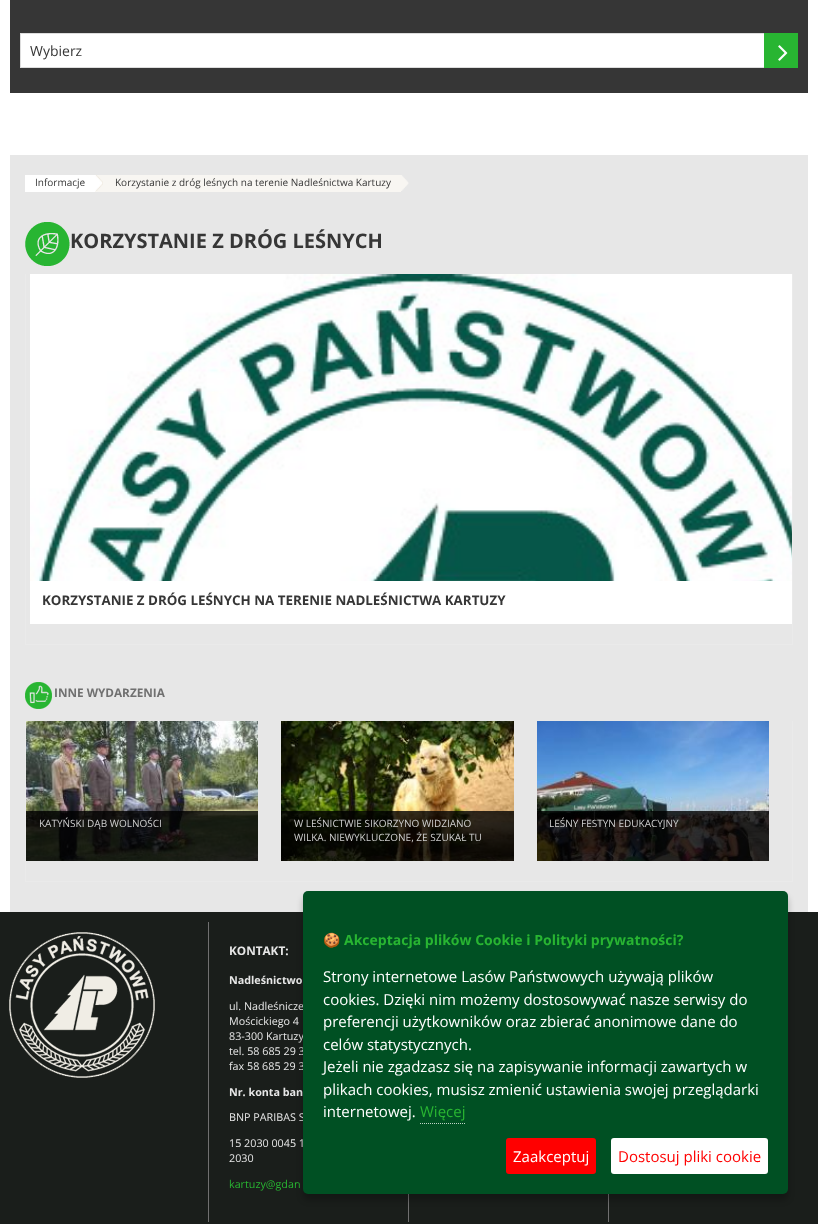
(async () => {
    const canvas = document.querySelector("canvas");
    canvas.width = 818;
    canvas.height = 1224;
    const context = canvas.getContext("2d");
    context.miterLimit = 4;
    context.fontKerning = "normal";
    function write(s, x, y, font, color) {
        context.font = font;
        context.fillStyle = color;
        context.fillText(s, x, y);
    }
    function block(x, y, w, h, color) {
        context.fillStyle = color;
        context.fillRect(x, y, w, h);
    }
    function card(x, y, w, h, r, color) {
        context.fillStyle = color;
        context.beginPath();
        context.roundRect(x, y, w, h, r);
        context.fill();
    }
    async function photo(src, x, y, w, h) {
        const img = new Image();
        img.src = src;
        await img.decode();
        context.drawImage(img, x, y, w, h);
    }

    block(0, 0, 818, 1224, "rgb(255, 255, 255)");
    block(10, 0, 798, 93, "rgb(54, 54, 54)");
    block(21, 34, 743, 33, "rgb(255, 255, 255)");
    context.strokeStyle = "rgb(221, 221, 221)";
    context.strokeRect(20.5, 33.5, 777, 34);
    write("Wybierz", 30, 56, "14px Open Sans", "rgb(54, 54, 54)");
    block(764, 33, 34, 35, "rgb(40, 181, 50)");
    await photo("media/1.png", 778, 45, 10, 16);
    block(10, 155, 798, 757, "rgb(231, 231, 231)");
    block(25, 175, 70, 17, "rgb(255, 255, 255)");
    write("Informacje", 35, 186, "10px Open Sans", "rgb(54, 54, 54)");
    block(95, 175, 306, 17, "rgb(248, 246, 242)");
    await photo("media/2.png", 95, 175, 8, 16);
    write("Korzystanie z dróg leśnych na terenie Nadleśnictwa Kartuzy", 115, 186, "10px Open Sans", "rgb(54, 54, 54)");
    await photo("media/3.png", 401, 175, 8, 16);
    await photo("media/4.png", 25, 222, 45, 44);
    write("KORZYSTANIE Z DRÓG LEŚNYCH", 70, 248, "bold 20px Open Sans", "rgb(54, 54, 54)");
    block(792, 274, 1, 371, "rgb(234, 234, 234)");
    block(25, 644, 768, 1, "rgb(234, 234, 234)");
    block(25, 274, 1, 371, "rgb(234, 234, 234)");
    await photo("media/5.png", 30, 274, 762, 307);
    block(30, 581, 762, 43, "rgb(255, 255, 255)");
    write("KORZYSTANIE Z DRÓG LEŚNYCH NA TERENIE NADLEŚNICTWA KARTUZY", 42, 605, "bold 13.35px Open Sans", "rgb(54, 54, 54)");
    await photo("media/6.png", 25, 682, 27, 27);
    write("INNE WYDARZENIA", 54, 697, "bold 11.75px Open Sans", "rgb(112, 112, 112)");
    block(792, 721, 1, 161, "rgb(234, 234, 234)");
    block(25, 881, 768, 1, "rgb(234, 234, 234)");
    block(25, 721, 1, 161, "rgb(234, 234, 234)");
    await photo("media/7.png", 26, 721, 232, 140);
    block(26, 811, 232, 50, "rgba(0, 0, 0, 0.8)");
    write("KATYŃSKI DĄB WOLNOŚCI", 39, 827, "10px Open Sans", "rgb(207, 207, 207)");
    await photo("media/8.png", 281, 721, 233, 140);
    block(281, 811, 233, 50, "rgba(0, 0, 0, 0.8)");
    write("W LEŚNICTWIE SIKORZYNO WIDZIANO", 294, 827, "10px Open Sans", "rgb(207, 207, 207)");
    write("WILKA. NIEWYKLUCZONE, ŻE SZUKAŁ TU", 294, 841, "10px Open Sans", "rgb(207, 207, 207)");
    await photo("media/9.png", 537, 721, 232, 140);
    block(537, 811, 232, 50, "rgba(0, 0, 0, 0.8)");
    write("LEŚNY FESTYN EDUKACYJNY", 549, 827, "10px Open Sans", "rgb(207, 207, 207)");
    block(0, 912, 818, 312, "rgb(26, 30, 27)");
    block(208, 922, 1, 300, "rgb(112, 112, 112)");
    await photo("media/10.png", 9, 932, 146, 146);
    block(408, 1194, 1, 28, "rgb(112, 112, 112)");
    write("KONTAKT:", 229, 955, "bold 11.75px Open Sans", "rgb(231, 231, 231)");
    write("Nadleśnictwo", 229, 984, "bold 10.75px Open Sans", "rgb(231, 231, 231)");
    write("ul. Nadleśnicze", 229, 1010, "10.75px Open Sans", "rgb(231, 231, 231)");
    write("Mościckiego 4", 229, 1025, "10.75px Open Sans", "rgb(231, 231, 231)");
    write("83-300 Kartuzy", 229, 1040, "10.75px Open Sans", "rgb(231, 231, 231)");
    write("tel. 58 685 29 3", 229, 1055, "10.75px Open Sans", "rgb(231, 231, 231)");
    write("fax 58 685 29 3", 229, 1070, "10.75px Open Sans", "rgb(231, 231, 231)");
    write("Nr. konta ban", 229, 1096, "bold 10.75px Open Sans", "rgb(231, 231, 231)");
    write("BNP PARIBAS S", 229, 1121, "10.75px Open Sans", "rgb(231, 231, 231)");
    write("15 2030 0045 1", 229, 1147, "10.75px Open Sans", "rgb(231, 231, 231)");
    write("2030", 229, 1162, "10.75px Open Sans", "rgb(231, 231, 231)");
    write("kartuzy@gdan", 229, 1188, "10.75px Open Sans", "rgb(40, 181, 50)");
    block(608, 1194, 1, 28, "rgb(112, 112, 112)");
    context.fillStyle = "rgba(0, 0, 0, 0.25)";
    context.filter = "blur(3px)";
    context.beginPath();
    context.roundRect(303, 897, 485, 303, 5);
    context.fill();
    context.filter = "none";
    card(303, 891, 485, 303, 5, "rgb(0, 80, 35)");
    write("🍪", 323, 945, "bold 14px Noto Color Emoji", "rgb(40, 181, 50)");
    write("Akceptacja plików Cookie i Polityki prywatności?", 344, 945, "bold 14px Open Sans", "rgb(40, 181, 50)");
    write("Strony internetowe Lasów Państwowych używają plików", 323, 982, "15px Open Sans", "rgb(255, 255, 255)");
    write("cookies. Dzięki nim możemy dostosowywać nasze serwisy do", 323, 1005, "15px Open Sans", "rgb(255, 255, 255)");
    write("preferencji użytkowników oraz zbierać anonimowe dane do", 323, 1027, "15px Open Sans", "rgb(255, 255, 255)");
    write("celów statystycznych.", 323, 1050, "15px Open Sans", "rgb(255, 255, 255)");
    write("Jeżeli nie zgadzasz się na zapisywanie informacji zawartych w", 323, 1072, "15px Open Sans", "rgb(255, 255, 255)");
    write("plikach cookies, musisz zmienić ustawienia swojej przeglądarki", 323, 1095, "15px Open Sans", "rgb(255, 255, 255)");
    write("internetowej.", 323, 1117, "15px Open Sans", "rgb(255, 255, 255)");
    write("Więcej", 420, 1117, "15px Open Sans", "rgb(40, 181, 50)");
    context.beginPath();
    context.moveTo(420, 1123.5);
    context.lineTo(465, 1123.5);
    context.strokeStyle = "rgb(191, 211, 200)";
    context.setLineDash([1, 1]);
    context.stroke();
    card(506, 1138, 90, 36, 3, "rgb(255, 0, 0)");
    write("Zaakceptuj", 513, 1162, "15px Open Sans", "rgb(255, 255, 255)");
    card(611, 1138, 157, 36, 3, "rgb(255, 255, 255)");
    write("Dostosuj pliki cookie", 618, 1162, "15px Open Sans", "rgb(255, 0, 0)");
})();
